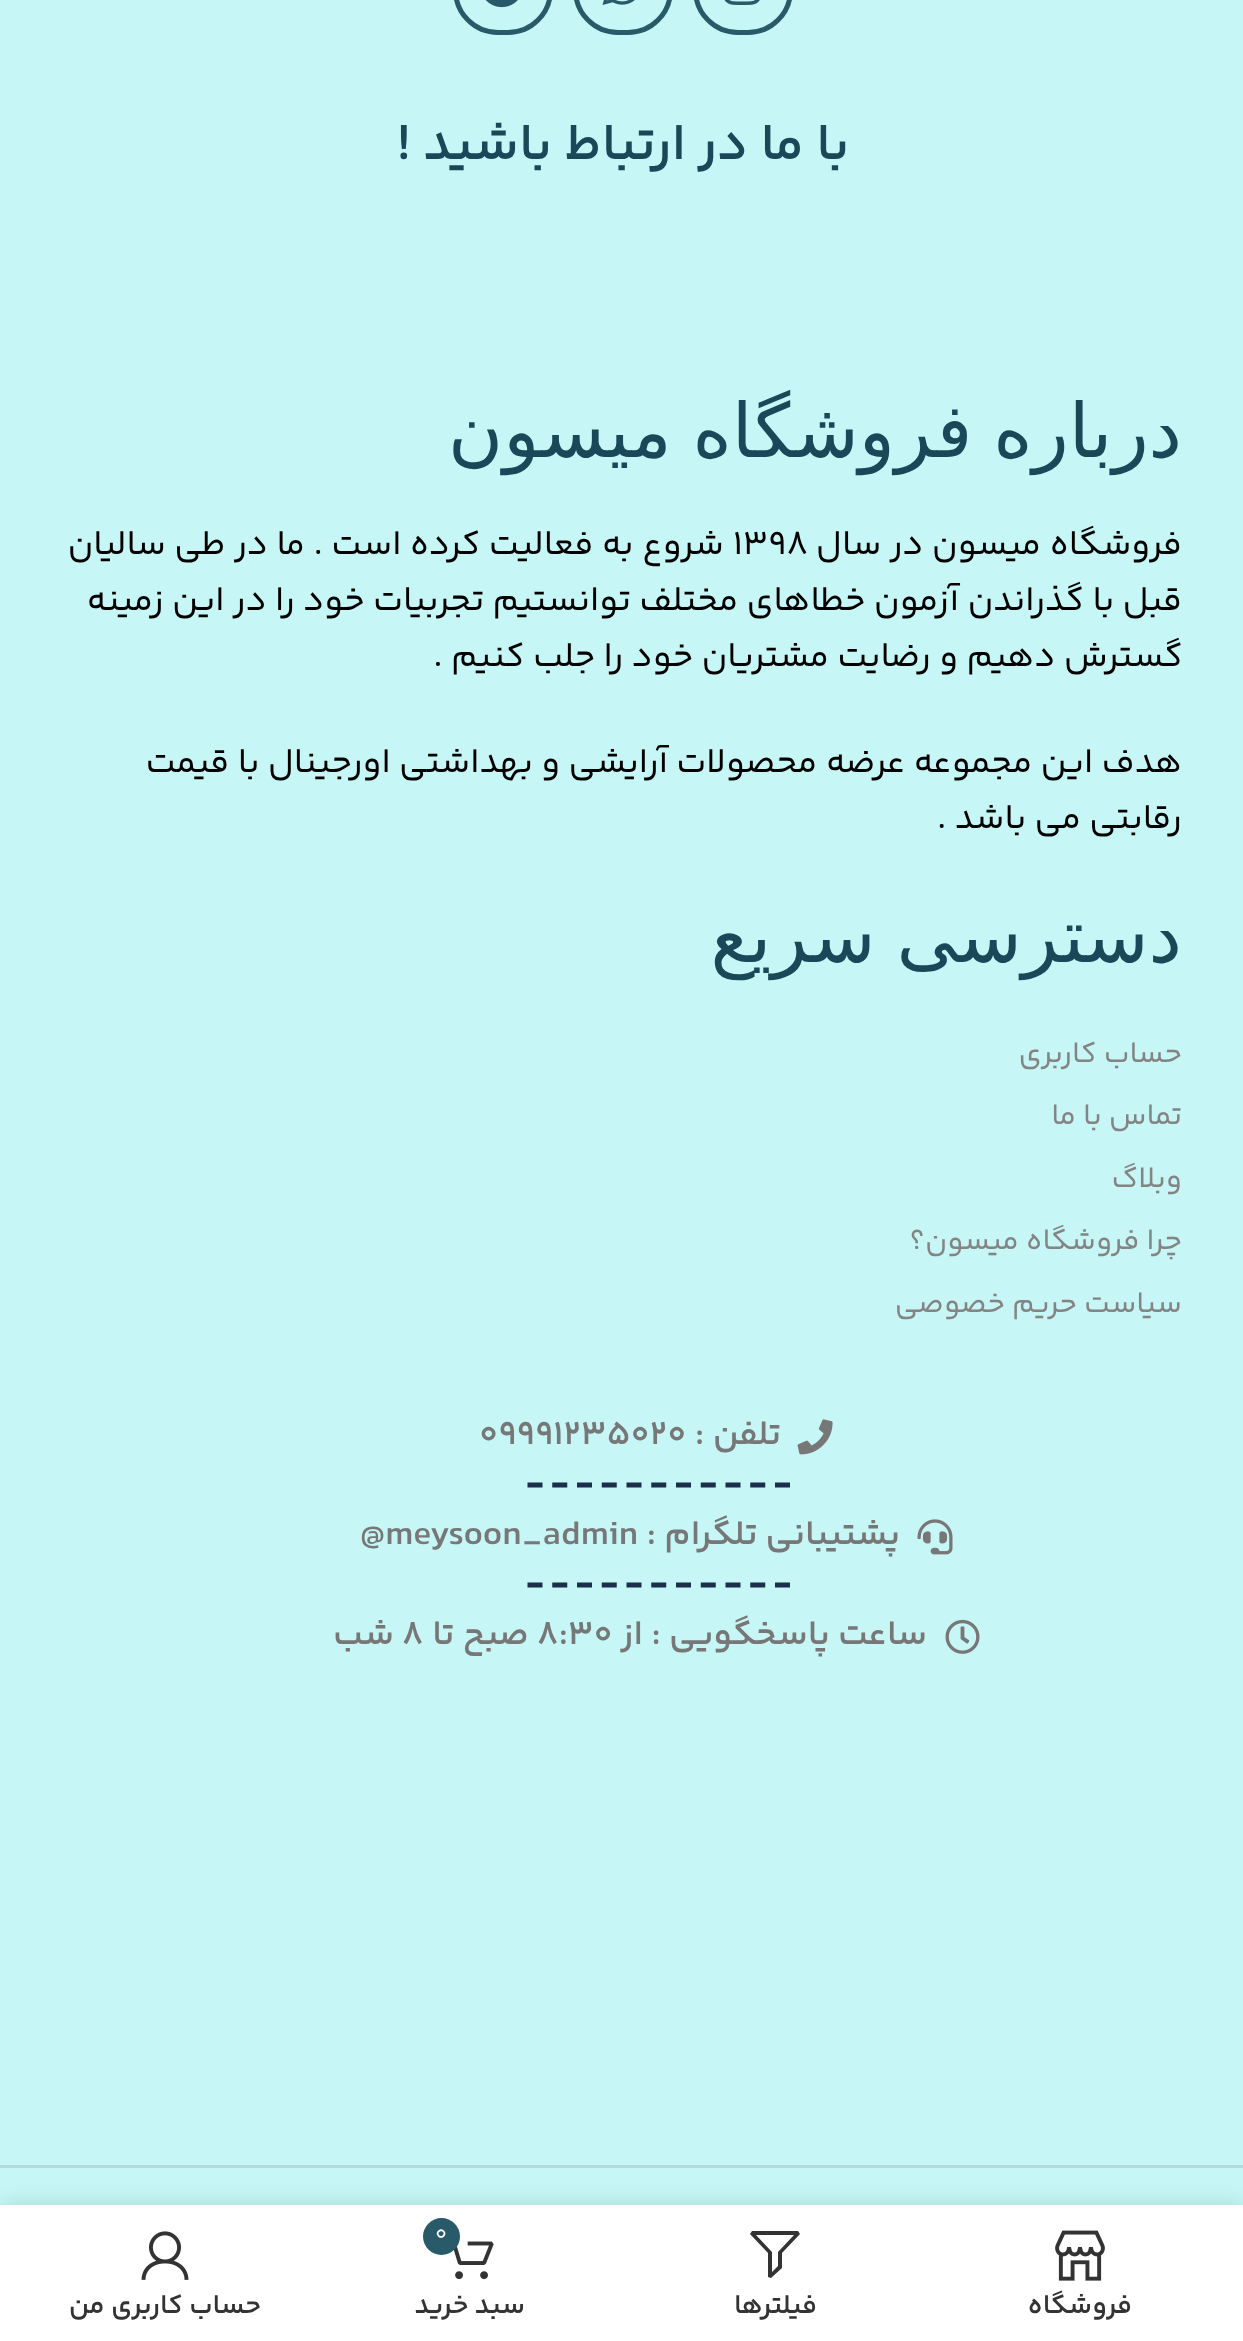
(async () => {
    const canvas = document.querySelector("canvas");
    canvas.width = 1243;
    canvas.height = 2341;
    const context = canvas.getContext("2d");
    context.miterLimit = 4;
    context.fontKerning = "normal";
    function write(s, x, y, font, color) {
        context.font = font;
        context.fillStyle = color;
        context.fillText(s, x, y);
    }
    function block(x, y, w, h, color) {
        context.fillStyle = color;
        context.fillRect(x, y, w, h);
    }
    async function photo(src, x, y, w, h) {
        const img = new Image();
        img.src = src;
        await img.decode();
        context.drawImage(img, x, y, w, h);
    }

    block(0, 0, 1243, 2341, "rgb(198, 246, 245)");
    context.beginPath();
    context.roundRect(695.5, -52.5, 95, 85, 47.5);
    context.strokeStyle = "rgb(41, 90, 105)";
    context.lineWidth = 5;
    context.stroke();
    await photo("media/1.png", 724, 0, 36, 5);
    context.beginPath();
    context.roundRect(575.5, -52.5, 95, 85, 47.5);
    context.stroke();
    await photo("media/2.png", 602, 0, 33, 5);
    context.beginPath();
    context.roundRect(455.5, -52.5, 95, 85, 47.5);
    context.stroke();
    await photo("media/3.png", 485, 0, 33, 8);
    context.direction = "rtl";
    write("با ما در", 849, 159, "600 52.5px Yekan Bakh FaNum", "rgb(25, 73, 88)");
    write("ارتباط باشید !", 686, 159, "600 52.5px Yekan Bakh FaNum", "rgb(25, 73, 88)");
    context.wordSpacing = "-3px";
    write("درباره فروشگاه میسون", 1182, 457, "75px DejaVu Sans", "rgb(25, 73, 88)");
    context.wordSpacing = "0px";
    write("فروشگاه میسون در سال", 1182, 554, "35px Yekan Bakh FaNum", "rgb(0, 0, 0)");
    context.direction = "ltr";
    write("1398", 733, 554, "35px Yekan Bakh FaNum", "rgb(0, 0, 0)");
    context.direction = "rtl";
    write("شروع به فعالیت کرده است . ما در طی سالیان", 724, 554, "35px Yekan Bakh FaNum", "rgb(0, 0, 0)");
    write("قبل با گذراندن آزمون خطاهای مختلف توانستیم تجربیات خود را در این زمینه", 1182, 610, "35px Yekan Bakh FaNum", "rgb(0, 0, 0)");
    write("گسترش دهیم و رضایت مشتریان خود را جلب کنیم .", 1183, 666, "35px Yekan Bakh FaNum", "rgb(0, 0, 0)");
    write("هدف این مجموعه عرضه محصولات آرایشی و بهداشتی اورجینال با قیمت", 1182, 772, "35px Yekan Bakh FaNum", "rgb(0, 0, 0)");
    write("رقابتی می باشد .", 1182, 828, "35px Yekan Bakh FaNum", "rgb(0, 0, 0)");
    context.wordSpacing = "-3px";
    write("دسترسی سریع", 1182, 962, "75px DejaVu Sans", "rgb(25, 73, 88)");
    context.wordSpacing = "0px";
    write("حساب کاربری", 1182, 1062, "30px Yekan Bakh FaNum", "rgb(132, 132, 132)");
    write("تماس با ما", 1182, 1124, "30px Yekan Bakh FaNum", "rgb(132, 132, 132)");
    write("وبلاگ", 1182, 1187, "30px Yekan Bakh FaNum", "rgb(132, 132, 132)");
    write("چرا فروشگاه میسون؟", 1182, 1249, "30px Yekan Bakh FaNum", "rgb(132, 132, 132)");
    write("سیاست حریم خصوصی", 1182, 1312, "30px Yekan Bakh FaNum", "rgb(132, 132, 132)");
    await photo("media/4.png", 797, 1419, 36, 36);
    write("تلفن :", 781, 1444, "600 35px Yekan Bakh FaNum", "rgb(119, 119, 119)");
    context.direction = "ltr";
    write("09991235020", 479, 1444, "600 35px Yekan Bakh FaNum", "rgb(119, 119, 119)");
    context.beginPath();
    context.moveTo(527.5, 1485);
    context.lineTo(790, 1485);
    context.strokeStyle = "rgb(27, 47, 75)";
    context.setLineDash([15, 9.75]);
    context.stroke();
    await photo("media/5.png", 917, 1519, 36, 36);
    context.direction = "rtl";
    write("پشتیبانی تلگرام :", 900, 1544, "600 35px Yekan Bakh FaNum", "rgb(119, 119, 119)");
    context.direction = "ltr";
    write("@meysoon_admin", 360, 1544, "600 35px Yekan Bakh FaNum", "rgb(119, 119, 119)");
    context.beginPath();
    context.moveTo(527.5, 1585);
    context.lineTo(790, 1585);
    context.stroke();
    await photo("media/6.png", 945, 1619, 35, 35);
    context.direction = "rtl";
    write("ساعت پاسخگویی : از", 927, 1644, "600 35px Yekan Bakh FaNum", "rgb(119, 119, 119)");
    context.direction = "ltr";
    write("8:30", 537, 1644, "600 35px Yekan Bakh FaNum", "rgb(119, 119, 119)");
    context.direction = "rtl";
    write("صبح تا", 529, 1644, "600 35px Yekan Bakh FaNum", "rgb(119, 119, 119)");
    context.direction = "ltr";
    write("8", 402, 1644, "600 35px Yekan Bakh FaNum", "rgb(119, 119, 119)");
    context.direction = "rtl";
    write("شب", 394, 1644, "600 35px Yekan Bakh FaNum", "rgb(119, 119, 119)");
    block(0, 2165, 1243, 3, "rgb(177, 220, 219)");
    context.fillStyle = "rgba(0, 0, 0, 0.12)";
    context.filter = "blur(11px)";
    context.beginPath();
    context.rect(0, 2205, 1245, 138);
    context.fill();
    context.filter = "none";
    block(0, 2205, 1243, 136, "rgb(255, 255, 255)");
    await photo("media/7.png", 1055, 2230, 50, 51);
    write("فروشگاه", 1132, 2313, "600 27.5px Yekan Bakh FaNum", "rgb(51, 51, 51)");
    context.beginPath();
    context.moveTo(752, 2231);
    context.lineTo(750, 2234);
    context.lineTo(768, 2253);
    context.lineTo(768, 2277);
    context.lineTo(771, 2278);
    context.lineTo(782, 2268);
    context.lineTo(782, 2253);
    context.lineTo(800, 2234);
    context.lineTo(798, 2231);
    context.closePath();
    context.moveTo(756, 2235);
    context.lineTo(794, 2235);
    context.lineTo(778, 2252);
    context.lineTo(778, 2266);
    context.lineTo(772, 2272);
    context.lineTo(772, 2252);
    context.closePath();
    context.fill();
    write("فیلترها", 817, 2313, "600 27.5px Yekan Bakh FaNum", "rgb(51, 51, 51)");
    await photo("media/8.png", 453, 2241, 41, 39);
    context.fillStyle = "rgb(41, 90, 105)";
    context.beginPath();
    context.arc(441.5, 2236.5, 18.5, 0, Math.PI * 2);
    context.fill();
    context.direction = "ltr";
    write("0", 435, 2240, "22px Yekan Bakh FaNum", "rgb(255, 255, 255)");
    context.direction = "rtl";
    write("سبد خرید", 525, 2313, "600 27.5px Yekan Bakh FaNum", "rgb(51, 51, 51)");
    await photo("media/9.png", 141, 2231, 48, 49);
    write("حساب کاربری من", 261, 2313, "600 27.5px Yekan Bakh FaNum", "rgb(51, 51, 51)");
})();
